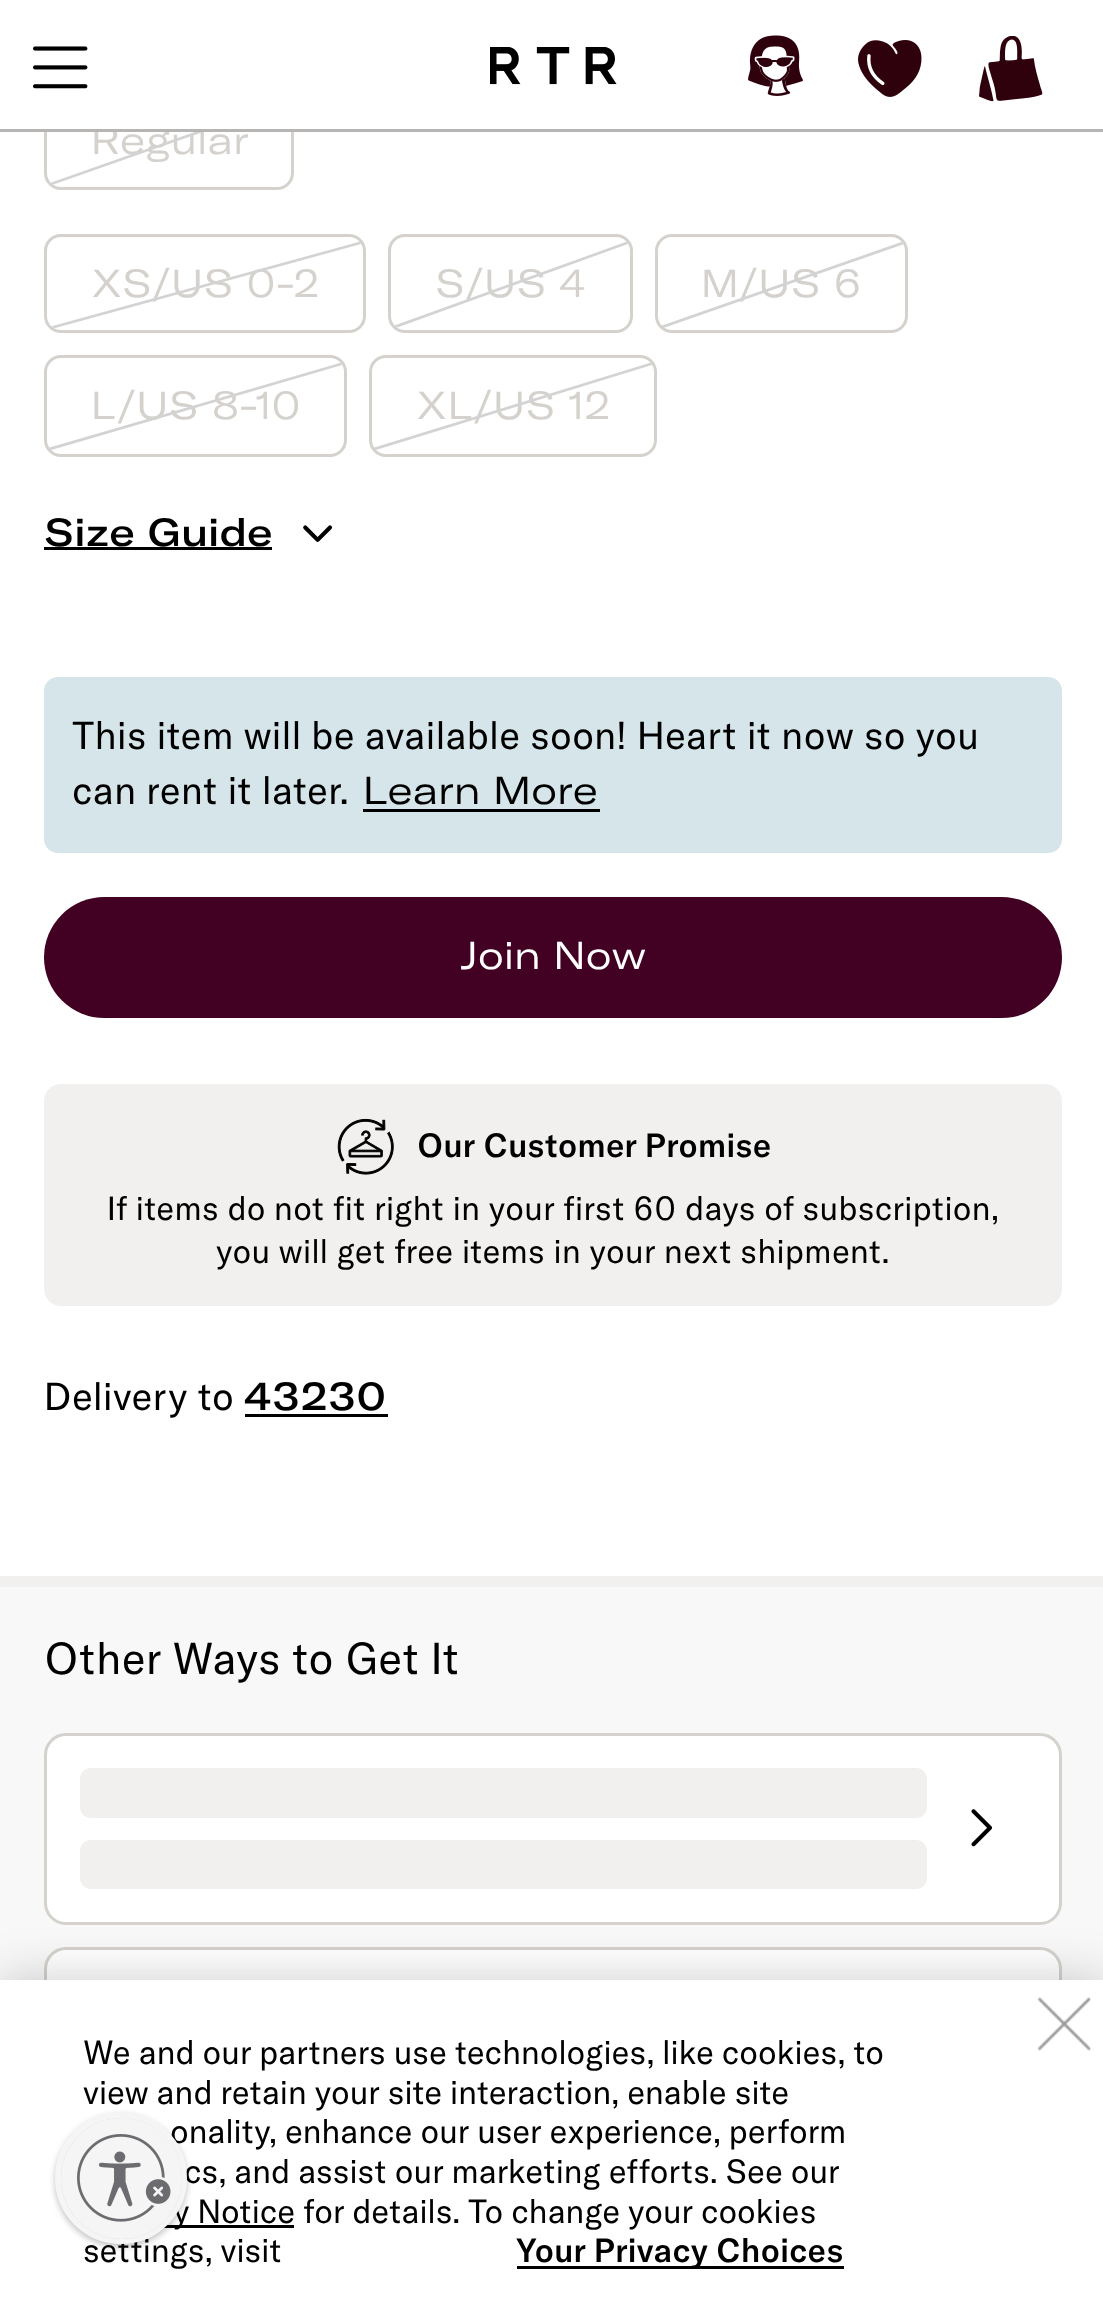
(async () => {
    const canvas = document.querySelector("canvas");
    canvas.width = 1103;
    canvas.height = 2299;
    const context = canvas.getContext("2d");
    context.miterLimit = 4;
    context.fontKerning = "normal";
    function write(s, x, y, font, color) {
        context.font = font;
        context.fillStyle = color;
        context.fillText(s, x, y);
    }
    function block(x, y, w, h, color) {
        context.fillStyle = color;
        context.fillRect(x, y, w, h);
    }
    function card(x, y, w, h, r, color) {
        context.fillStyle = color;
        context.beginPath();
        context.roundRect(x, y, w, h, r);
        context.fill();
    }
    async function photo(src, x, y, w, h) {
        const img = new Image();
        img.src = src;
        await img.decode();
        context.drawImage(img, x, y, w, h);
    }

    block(0, 0, 1103, 2299, "rgb(255, 255, 255)");
    context.beginPath();
    context.roundRect(45.5, 92.5, 247, 96, 15.5);
    context.strokeStyle = "rgb(213, 209, 205)";
    context.lineWidth = 3;
    context.stroke();
    context.letterSpacing = "0.4px";
    write("Regular", 91, 154, "38.5px 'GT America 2'", "rgb(213, 209, 205)");
    context.save();
    context.beginPath();
    context.roundRect(47, 94, 245, 93, 14);
    context.clip();
    context.beginPath();
    context.moveTo(41, 187.5);
    context.lineTo(292.5, 99);
    context.strokeStyle = "rgb(211, 211, 211)";
    context.lineWidth = 2.8;
    context.stroke();
    context.restore();
    block(44, 91, 250, 38, "rgb(255, 255, 255)");
    block(0, 129, 1103, 3, "rgb(183, 181, 179)");
    await photo("media/1.png", 33, 46, 55, 43);
    await photo("media/2.png", 490, 47, 127, 38);
    await photo("media/3.png", 748, 35, 55, 61);
    await photo("media/4.png", 858, 40, 64, 57);
    await photo("media/5.png", 979, 36, 64, 66);
    context.beginPath();
    context.roundRect(45.5, 235.5, 319, 96, 15.5);
    context.stroke();
    write("XS/US 0-2", 91, 297, "38.5px 'GT America 2'", "rgb(213, 209, 205)");
    context.save();
    context.beginPath();
    context.roundRect(47, 237, 316, 93, 14);
    context.clip();
    context.beginPath();
    context.moveTo(41, 330.5);
    context.lineTo(363.5, 242);
    context.strokeStyle = "rgb(211, 211, 211)";
    context.lineWidth = 2.8;
    context.stroke();
    context.restore();
    context.beginPath();
    context.roundRect(389.5, 235.5, 242, 96, 15.5);
    context.stroke();
    write("S/US 4", 435, 297, "38.5px 'GT America 2'", "rgb(213, 209, 205)");
    context.save();
    context.beginPath();
    context.roundRect(391, 237, 239, 93, 14);
    context.clip();
    context.beginPath();
    context.moveTo(385, 330.5);
    context.lineTo(629.5, 242);
    context.strokeStyle = "rgb(211, 211, 211)";
    context.lineWidth = 2.8;
    context.stroke();
    context.restore();
    context.beginPath();
    context.roundRect(656.5, 235.5, 250, 96, 15.5);
    context.stroke();
    write("M/US 6", 701, 297, "38.5px 'GT America 2'", "rgb(213, 209, 205)");
    context.save();
    context.beginPath();
    context.roundRect(657, 237, 248, 93, 14);
    context.clip();
    context.beginPath();
    context.moveTo(652, 330.5);
    context.lineTo(906, 242);
    context.strokeStyle = "rgb(211, 211, 211)";
    context.lineWidth = 2.8;
    context.stroke();
    context.restore();
    context.beginPath();
    context.roundRect(45.5, 356.5, 300, 99, 15.5);
    context.stroke();
    write("L/US 8-10", 91, 419, "38.5px 'GT America 2'", "rgb(213, 209, 205)");
    context.save();
    context.beginPath();
    context.roundRect(47, 358, 297, 96, 14);
    context.clip();
    context.beginPath();
    context.moveTo(41, 451.5);
    context.lineTo(344.5, 363);
    context.strokeStyle = "rgb(211, 211, 211)";
    context.lineWidth = 2.8;
    context.stroke();
    context.restore();
    context.beginPath();
    context.roundRect(370.5, 356.5, 285, 99, 15.5);
    context.stroke();
    write("XL/US 12", 416, 419, "38.5px 'GT America 2'", "rgb(213, 209, 205)");
    context.save();
    context.beginPath();
    context.roundRect(371, 358, 284, 96, 14);
    context.clip();
    context.beginPath();
    context.moveTo(366, 451.5);
    context.lineTo(654, 363);
    context.strokeStyle = "rgb(211, 211, 211)";
    context.lineWidth = 2.8;
    context.stroke();
    context.restore();
    write("Size Guide", 44, 546, "500 38.5px GT America", "rgb(0, 0, 0)");
    block(44, 547, 228, 3, "rgb(0, 0, 0)");
    await photo("media/6.png", 303, 525, 30, 17);
    card(44, 677, 1018, 176, 14, "rgb(214, 229, 233)");
    write("This item will be available soon! Heart it now so you", 72, 749, "38.5px GT America", "rgb(0, 0, 0)");
    write("can rent it later.", 72, 804, "38.5px GT America", "rgb(0, 0, 0)");
    write("Learn More", 363, 804, "38.5px 'GT America 2'", "rgb(0, 0, 0)");
    block(363, 809, 237, 3, "rgb(0, 0, 0)");
    card(44, 897, 1018, 121, 60.5, "rgb(66, 0, 34)");
    write("Join Now", 460, 969, "38.5px 'GT America 2'", "rgb(255, 255, 255)");
    card(44, 1084, 1018, 222, 17, "rgb(241, 240, 238)");
    await photo("media/7.png", 337, 1118, 57, 57);
    context.letterSpacing = "0.33px";
    write("Our Customer Promise", 417, 1157, "500 33px 'GT America 2'", "rgb(0, 0, 0)");
    write("If items do not fit right in your first 60 days of subscription,", 107, 1220, "33px GT America", "rgb(0, 0, 0)");
    write("you will get free items in your next shipment.", 216, 1263, "33px GT America", "rgb(0, 0, 0)");
    context.letterSpacing = "0.4px";
    write("Delivery to", 44, 1410, "38.5px GT America", "rgb(0, 0, 0)");
    write("43230", 244, 1410, "500 38.5px GT America", "rgb(0, 0, 0)");
    block(245, 1414, 143, 3, "rgb(0, 0, 0)");
    block(0, 1587, 1103, 393, "rgb(248, 248, 248)");
    block(0, 1576, 1103, 11, "rgb(241, 240, 238)");
    write("Other Ways to Get It", 44, 1674, "44px GT America", "rgb(0, 0, 0)");
    context.fillStyle = "rgb(255, 255, 255)";
    context.beginPath();
    context.roundRect(45.5, 1734.5, 1015, 189, 20.5);
    context.fill();
    context.stroke();
    card(80, 1768, 847, 50, 11, "rgb(241, 240, 238)");
    card(80, 1840, 847, 49, 11, "rgb(241, 240, 238)");
    await photo("media/8.png", 971, 1809, 21, 38);
    context.fillStyle = "rgb(255, 255, 255)";
    context.beginPath();
    context.roundRect(45.5, 1948.5, 1015, 190, 20.5);
    context.fill();
    context.stroke();
    context.fillStyle = "rgba(0, 0, 0, 0.2)";
    context.filter = "blur(25px)";
    context.beginPath();
    context.rect(0, 1980, 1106, 319);
    context.fill();
    context.filter = "none";
    block(0, 1980, 1103, 319, "rgb(255, 255, 255)");
    await photo("media/9.png", 1037, 1997, 54, 54);
    context.letterSpacing = "0px";
    write("We and our partners use technologies, like cookies, to", 83, 2064, "33px GT America", "rgb(0, 0, 0)");
    write("view and retain your site interaction, enable site", 83, 2104, "33px GT America", "rgb(0, 0, 0)");
    write("onality, enhance our user experience, perform", 170, 2143, "33px GT America", "rgb(0, 0, 0)");
    write("cs, and assist our marketing efforts. See our", 184, 2183, "33px GT America", "rgb(0, 0, 0)");
    block(164, 2225, 130, 3, "rgb(0, 0, 0)");
    write("y Notice for details. To change your cookies", 173, 2223, "33px GT America", "rgb(0, 0, 0)");
    write("settings, visit", 83, 2262, "33px GT America", "rgb(0, 0, 0)");
    block(517, 2266, 327, 3, "rgb(0, 0, 0)");
    context.letterSpacing = "0.33px";
    write("Your Privacy Choices", 516, 2262, "500 33px 'GT America 2'", "rgb(0, 0, 0)");
    context.fillStyle = "rgba(0, 0, 0, 0.24)";
    context.filter = "blur(3px)";
    context.beginPath();
    context.roundRect(55, 2115, 132, 132, 66);
    context.fill();
    context.filter = "none";
    context.fillStyle = "rgb(235, 235, 240)";
    context.beginPath();
    context.arc(121, 2178, 63, 0, Math.PI * 2);
    context.fill();
    context.strokeStyle = "rgb(245, 245, 245)";
    context.lineWidth = 6;
    context.stroke();
    context.save();
    context.beginPath();
    context.roundRect(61, 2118, 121, 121, 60.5);
    context.clip();
    context.fillStyle = "rgba(0, 0, 0, 0.24)";
    context.filter = "blur(3px)";
    context.beginPath();
    context.roundRect(61, 2120, 121, 121, 60.5);
    context.fill();
    context.filter = "none";
    context.restore();
    context.fillStyle = "rgb(245, 245, 245)";
    context.beginPath();
    context.arc(121.5, 2178.5, 60.5, 0, Math.PI * 2);
    context.fill();
    await photo("media/10.png", 77, 2134, 94, 88);
})();
